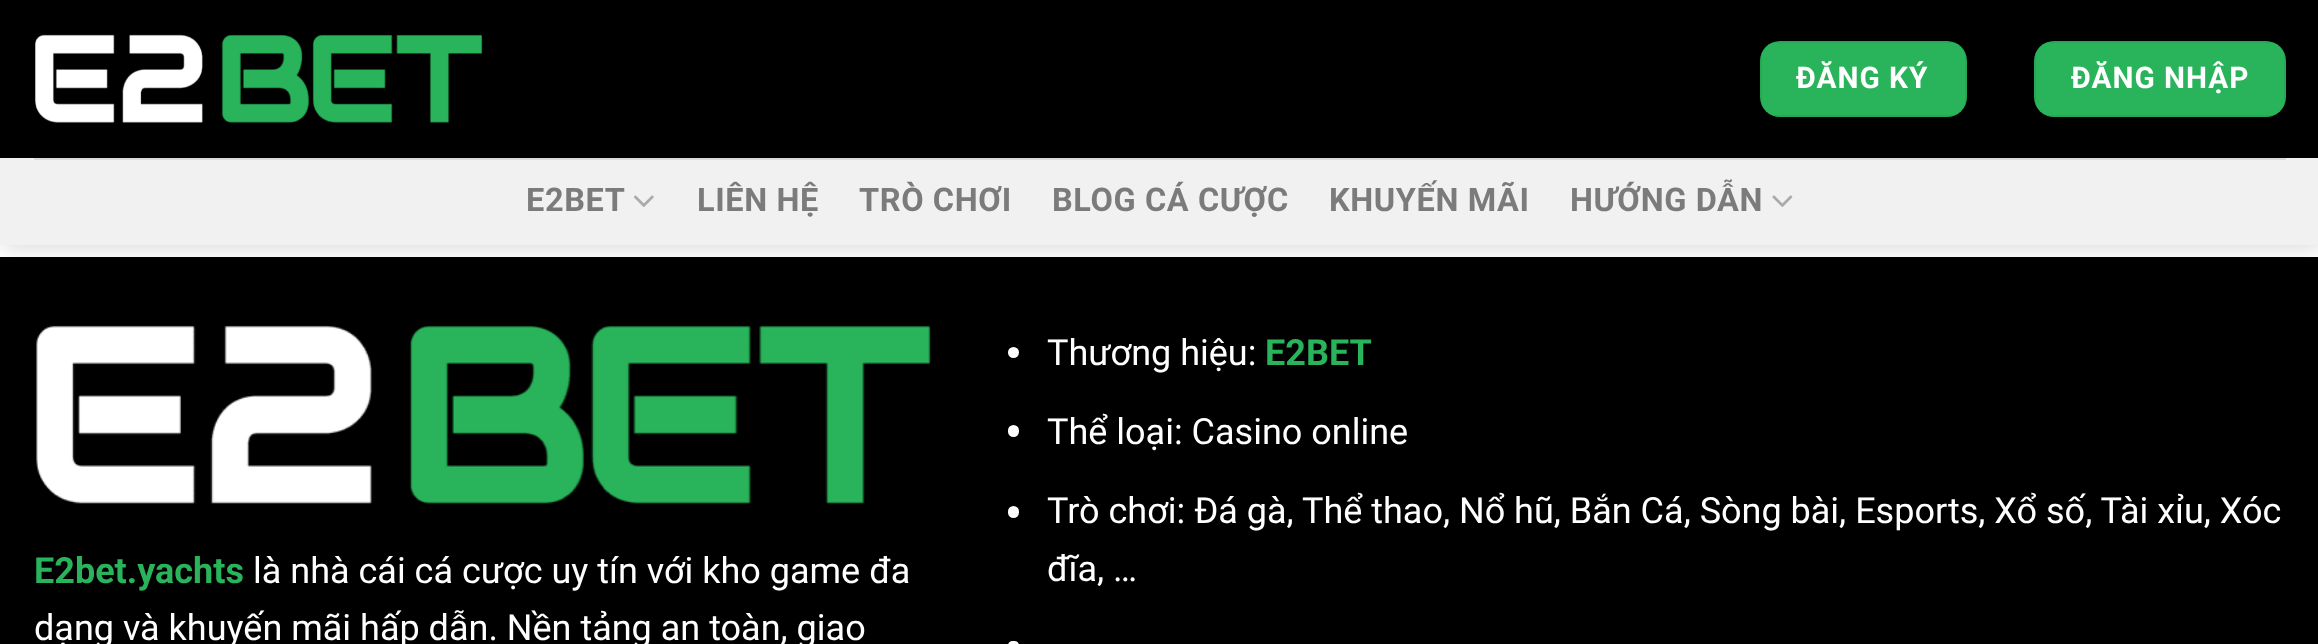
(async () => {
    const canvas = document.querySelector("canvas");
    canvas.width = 2318;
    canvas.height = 644;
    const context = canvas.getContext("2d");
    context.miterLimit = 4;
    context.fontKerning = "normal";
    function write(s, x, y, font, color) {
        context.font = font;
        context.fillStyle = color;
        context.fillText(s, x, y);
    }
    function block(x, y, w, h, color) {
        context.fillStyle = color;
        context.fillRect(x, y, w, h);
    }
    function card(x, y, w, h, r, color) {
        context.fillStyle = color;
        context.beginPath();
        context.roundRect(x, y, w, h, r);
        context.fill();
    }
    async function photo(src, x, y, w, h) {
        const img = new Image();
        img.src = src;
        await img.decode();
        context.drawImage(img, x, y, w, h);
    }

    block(0, 0, 2318, 644, "rgb(255, 255, 255)");
    block(0, 257, 2318, 387, "rgb(0, 0, 0)");
    context.fillStyle = "rgba(0, 0, 0, 0.15)";
    context.filter = "blur(11px)";
    context.beginPath();
    context.rect(2, 2, 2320, 246);
    context.fill();
    context.filter = "none";
    block(0, 0, 2318, 158, "rgb(0, 0, 0)");
    await photo("media/1.png", 35, 34, 448, 89);
    card(1760, 41, 207, 76, 20, "rgb(41, 179, 90)");
    context.strokeStyle = "rgba(0, 0, 0, 0.05)";
    context.lineWidth = 2;
    context.strokeRect(1761, 42, 205, 74);
    context.letterSpacing = "1px";
    write("ĐĂNG KÝ", 1796, 88, "bold 29.75px Roboto", "rgb(255, 255, 255)");
    card(2034, 41, 252, 76, 20, "rgb(41, 179, 90)");
    context.strokeRect(2035, 42, 250, 74);
    write("ĐĂNG NHẬP", 2071, 88, "bold 29.75px Roboto", "rgb(255, 255, 255)");
    block(0, 158, 2318, 87, "rgb(241, 241, 241)");
    block(34, 158, 2252, 2, "rgb(218, 218, 218)");
    context.letterSpacing = "0.6px";
    write("E2BET", 526, 211, "bold 32.5px Roboto", "rgb(123, 123, 123)");
    await photo("media/2.png", 634, 195, 20, 12);
    write("LIÊN HỆ", 697, 211, "bold 32.5px Roboto", "rgb(123, 123, 123)");
    write("TRÒ CHƠI", 859, 211, "bold 32.5px Roboto", "rgb(123, 123, 123)");
    write("BLOG CÁ CƯỢC", 1052, 211, "bold 32.5px Roboto", "rgb(123, 123, 123)");
    write("KHUYẾN MÃI", 1329, 211, "bold 32.5px Roboto", "rgb(123, 123, 123)");
    write("HƯỚNG DẪN", 1570, 211, "bold 32.5px Roboto", "rgb(123, 123, 123)");
    await photo("media/3.png", 1772, 195, 21, 12);
    context.fillStyle = "rgb(255, 255, 255)";
    context.beginPath();
    context.arc(1013.5, 352.5, 5.5, 0, Math.PI * 2);
    context.fill();
    context.letterSpacing = "0px";
    write("Thương hiệu:", 1047, 365, "36px Roboto", "rgb(255, 255, 255)");
    write("E2BET", 1265, 365, "bold 36px Roboto", "rgb(41, 179, 90)");
    card(1008, 425, 11, 12, 5.5, "rgb(255, 255, 255)");
    write("Thể loại: Casino online", 1047, 444, "36px Roboto", "rgb(255, 255, 255)");
    card(1008, 506, 11, 12, 5.5, "rgb(255, 255, 255)");
    write("Trò chơi: Đá gà, Thể thao, Nổ hũ, Bắn Cá, Sòng bài, Esports, Xổ số, Tài xỉu, Xóc", 1047, 523, "36px Roboto", "rgb(255, 255, 255)");
    write("đĩa, …", 1047, 581, "36px Roboto", "rgb(255, 255, 255)");
    card(1008, 641, 11, 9, 5.5, "rgb(255, 255, 255)");
    await photo("media/4.png", 36, 325, 896, 179);
    write("E2bet.yachts", 34, 583, "bold 36px Roboto", "rgb(41, 179, 90)");
    write("là nhà cái cá cược uy tín với kho game đa", 253, 583, "36px Roboto", "rgb(255, 255, 255)");
    write("dạng và khuyến mãi hấp dẫn. Nền tảng an toàn, giao", 34, 640, "36px Roboto", "rgb(255, 255, 255)");
})();
